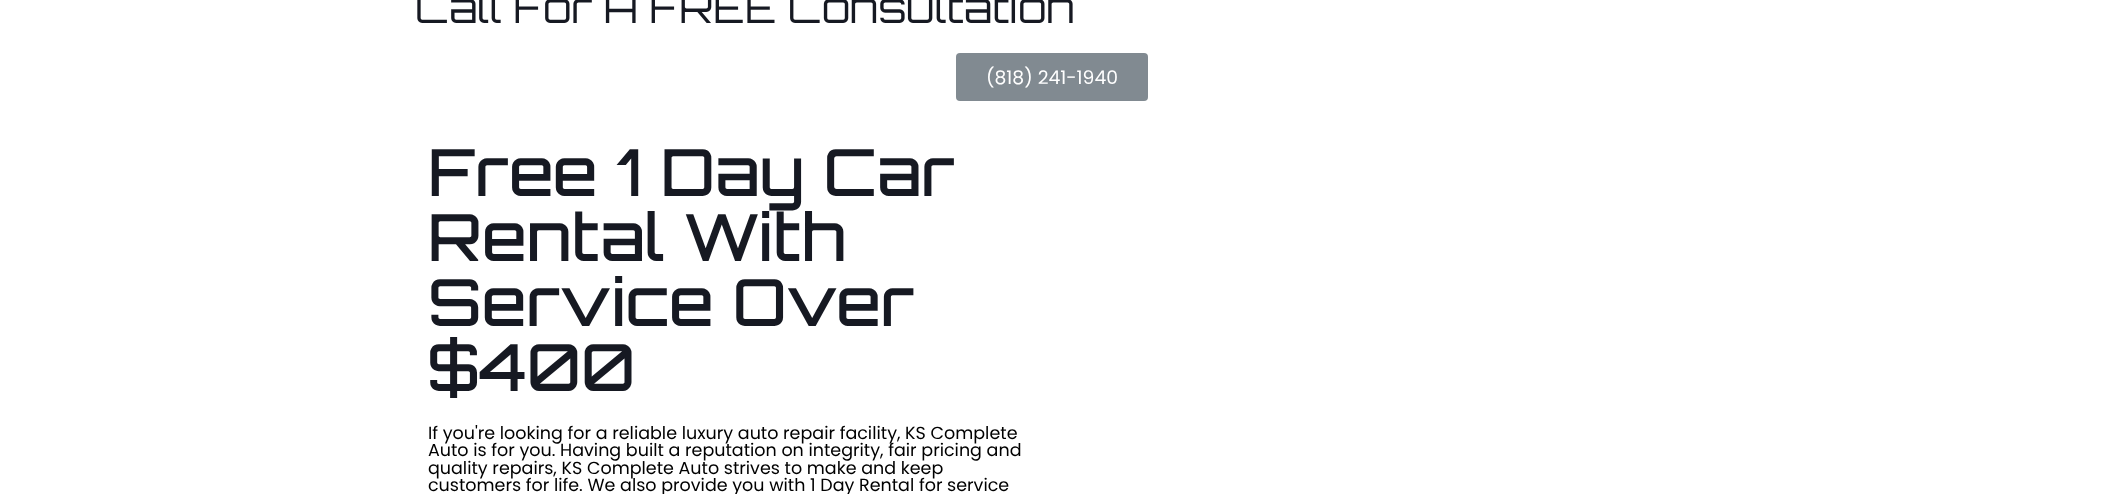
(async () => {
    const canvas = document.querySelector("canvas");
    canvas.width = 2103;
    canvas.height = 494;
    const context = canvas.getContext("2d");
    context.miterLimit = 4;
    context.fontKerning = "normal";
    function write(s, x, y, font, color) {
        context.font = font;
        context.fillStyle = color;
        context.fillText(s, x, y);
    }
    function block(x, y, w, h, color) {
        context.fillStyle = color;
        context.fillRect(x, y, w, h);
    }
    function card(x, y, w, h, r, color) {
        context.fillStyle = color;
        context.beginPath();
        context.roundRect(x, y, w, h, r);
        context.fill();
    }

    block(0, 0, 2103, 494, "rgb(255, 255, 255)");
    write("Call For A FREE Consultation", 415, 23, "41.25px Orbitron", "rgb(22, 25, 34)");
    card(956, 53, 192, 48, 4, "rgb(129, 138, 145)");
    write("(818) 241-1940", 986, 84, "18.75px Poppins", "rgb(255, 255, 255)");
    write("Free 1 Day Car", 428, 196, "500 65px Orbitron", "rgb(22, 25, 34)");
    write("Rental With", 428, 261, "500 65px Orbitron", "rgb(22, 25, 34)");
    write("Service Over", 428, 326, "500 65px Orbitron", "rgb(22, 25, 34)");
    write("$400", 428, 391, "500 65px Orbitron", "rgb(22, 25, 34)");
    write("If you're looking for a reliable luxury auto repair facility, KS Complete", 428, 439, "17.5px Poppins", "rgb(0, 0, 0)");
    write("Auto is for you. Having built a reputation on integrity, fair pricing and", 428, 456, "17.5px Poppins", "rgb(0, 0, 0)");
    write("quality repairs, KS Complete Auto strives to make and keep", 428, 474, "17.5px Poppins", "rgb(0, 0, 0)");
    write("customers for life. We also provide you with 1 Day Rental for service", 428, 491, "17.5px Poppins", "rgb(0, 0, 0)");
})();
